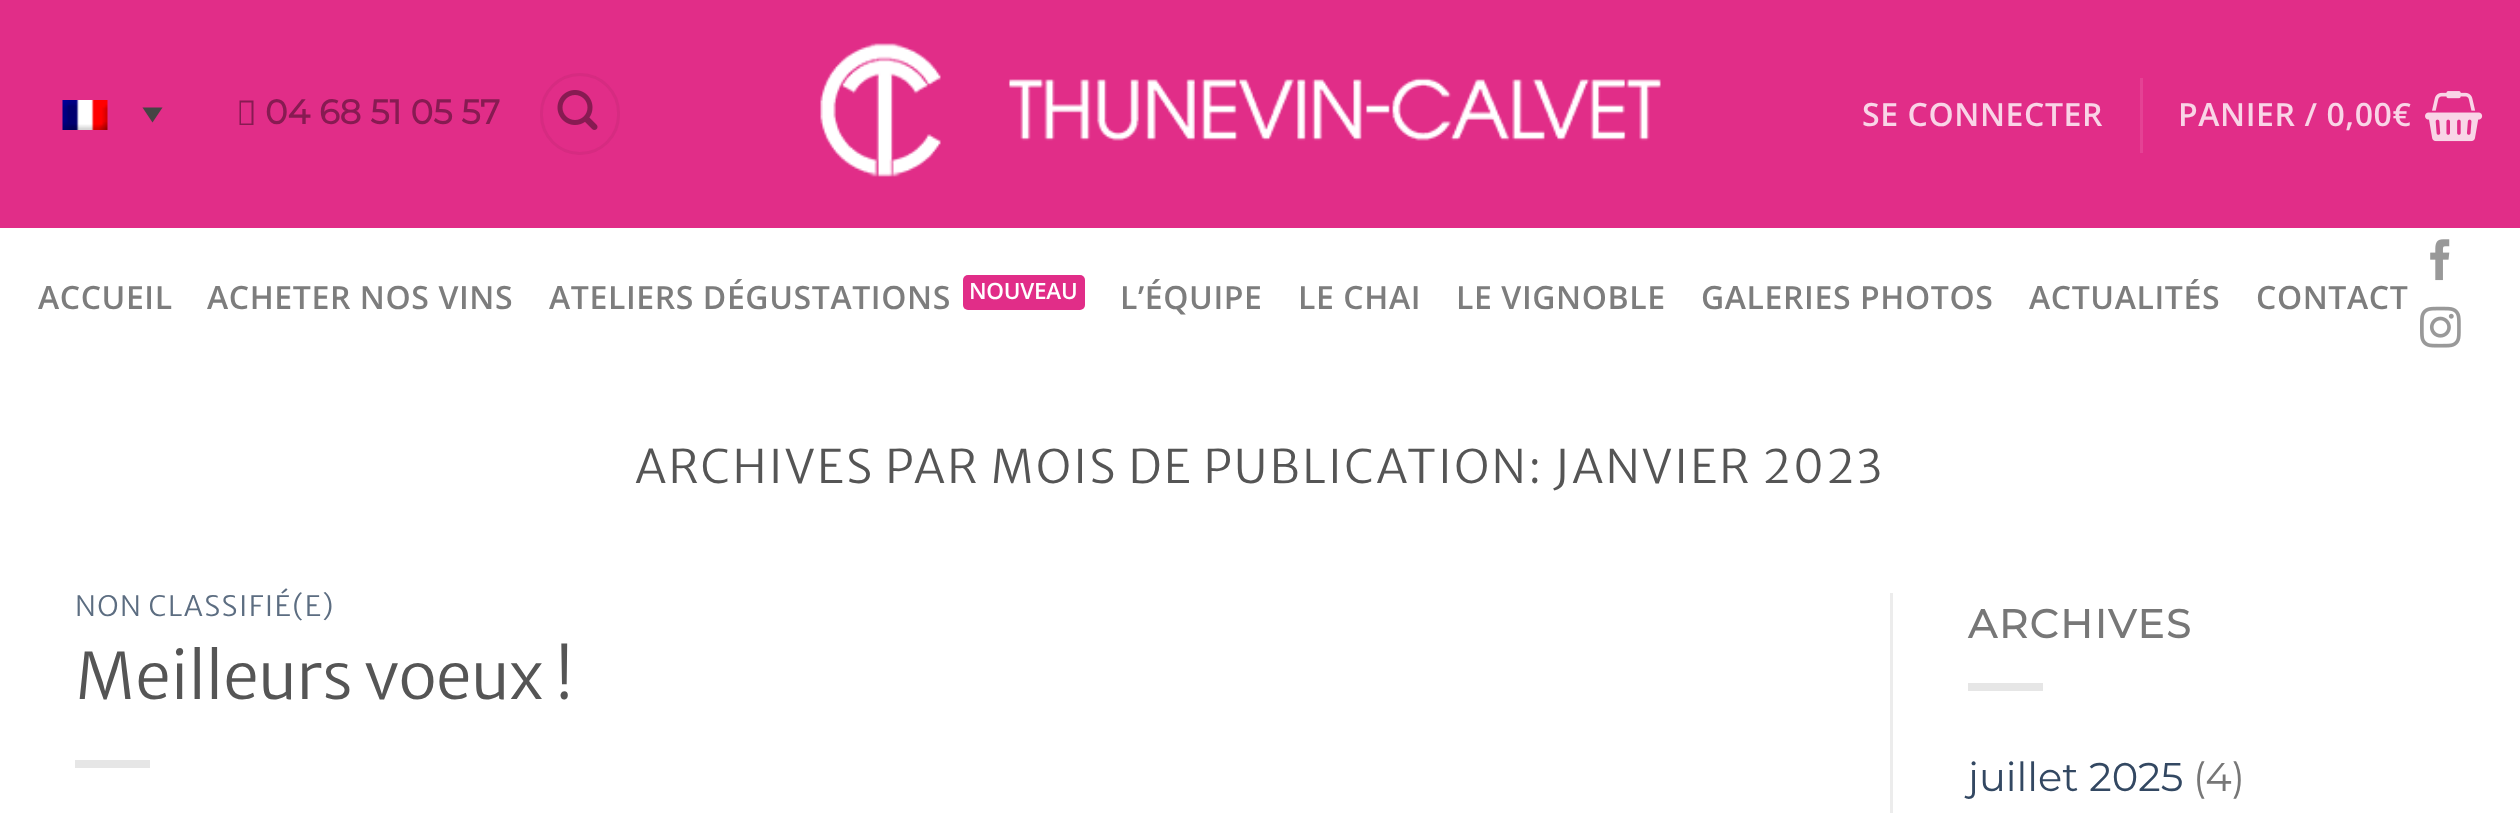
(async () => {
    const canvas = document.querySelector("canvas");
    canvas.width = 2520;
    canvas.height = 813;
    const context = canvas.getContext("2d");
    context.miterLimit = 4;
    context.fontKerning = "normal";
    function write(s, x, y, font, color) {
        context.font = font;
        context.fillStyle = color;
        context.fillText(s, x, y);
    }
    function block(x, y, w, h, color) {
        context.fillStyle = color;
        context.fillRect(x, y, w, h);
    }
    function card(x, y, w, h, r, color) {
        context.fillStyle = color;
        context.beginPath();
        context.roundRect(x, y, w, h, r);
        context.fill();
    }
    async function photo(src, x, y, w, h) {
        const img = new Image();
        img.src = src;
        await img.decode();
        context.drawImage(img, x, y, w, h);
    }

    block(0, 0, 2520, 813, "rgb(255, 255, 255)");
    block(0, 0, 2520, 228, "rgb(225, 45, 136)");
    await photo("media/1.png", 62, 100, 46, 30);
    context.fillStyle = "rgb(68, 68, 68)";
    context.beginPath();
    context.moveTo(142.5, 107.5);
    context.lineTo(162.5, 107.5);
    context.lineTo(152.5, 122.5);
    context.closePath();
    context.fill();
    context.fillStyle = "rgb(135, 27, 82)";
    context.beginPath();
    context.moveTo(253.5, 125);
    context.lineTo(253.5, 100.5);
    context.lineTo(239.5, 100.5);
    context.lineTo(239.5, 125);
    context.closePath();
    context.moveTo(251.5, 123.5);
    context.lineTo(241, 123.5);
    context.lineTo(241, 102.5);
    context.lineTo(251.5, 102.5);
    context.closePath();
    context.fill();
    write("04 68 51 05 57", 265, 124, "bold 34px Montserrat", "rgb(135, 27, 82)");
    context.beginPath();
    context.roundRect(541.5, 74.5, 77, 79, 38.5);
    context.strokeStyle = "rgb(214, 43, 129)";
    context.lineWidth = 3;
    context.stroke();
    await photo("media/2.png", 557, 90, 41, 40);
    await photo("media/3.png", 820, 43, 841, 134);
    context.letterSpacing = "0.6px";
    write("SE CONNECTER", 1862, 126, "600 32px Open Sans", "rgb(249, 213, 231)");
    block(2140, 78, 3, 75, "rgb(228, 66, 148)");
    write("PANIER / 0,00€", 2178, 126, "600 32px Open Sans", "rgb(249, 213, 231)");
    await photo("media/4.png", 2425, 91, 58, 51);
    write("ACCUEIL", 38, 309, "600 32px Open Sans", "rgb(125, 125, 125)");
    write("ACHETER NOS VINS", 207, 309, "600 32px Open Sans", "rgb(125, 125, 125)");
    write("ATELIERS DÉGUSTATIONS", 549, 309, "600 32px Open Sans", "rgb(125, 125, 125)");
    card(963, 275, 122, 35, 5, "rgb(225, 45, 136)");
    context.letterSpacing = "-0.25px";
    write("NOUVEAU", 969, 299, "600 22.5px Open Sans", "rgb(255, 255, 255)");
    context.letterSpacing = "0.6px";
    write("L’ÉQUIPE", 1120, 309, "600 32px Open Sans", "rgb(125, 125, 125)");
    write("LE CHAI", 1298, 309, "600 32px Open Sans", "rgb(125, 125, 125)");
    write("LE VIGNOBLE", 1456, 309, "600 32px Open Sans", "rgb(125, 125, 125)");
    write("GALERIES PHOTOS", 1701, 309, "600 32px Open Sans", "rgb(125, 125, 125)");
    write("ACTUALITÉS", 2029, 309, "600 32px Open Sans", "rgb(125, 125, 125)");
    write("CONTACT", 2256, 309, "600 32px Open Sans", "rgb(125, 125, 125)");
    await photo("media/5.png", 2430, 239, 20, 42);
    await photo("media/6.png", 2420, 306, 41, 42);
    context.letterSpacing = "2.3px";
    write("ARCHIVES PAR MOIS DE PUBLICATION:", 635, 483, "300 46px Merriweather Sans", "rgb(85, 85, 85)");
    write("JANVIER 2023", 1554, 483, "300 46px Merriweather Sans", "rgb(85, 85, 85)");
    context.letterSpacing = "1.4px";
    write("NON CLASSIFIÉ(E)", 75, 616, "300 28px Merriweather Sans", "rgb(92, 109, 129)");
    context.letterSpacing = "0px";
    write("Meilleurs voeux !", 75, 699, "300 64px Merriweather Sans", "rgb(85, 85, 85)");
    block(75, 760, 75, 8, "rgb(230, 230, 230)");
    block(1890, 593, 3, 220, "rgb(236, 236, 236)");
    context.letterSpacing = "2px";
    write("ARCHIVES", 1968, 638, "bold 40px Montserrat", "rgb(119, 119, 119)");
    block(1968, 683, 75, 8, "rgb(230, 230, 230)");
    context.letterSpacing = "0px";
    write("juillet 2025", 1968, 791, "40px Montserrat", "rgb(51, 72, 98)");
    write("(4)", 2193, 791, "40px Montserrat", "rgb(119, 119, 119)");
})();
